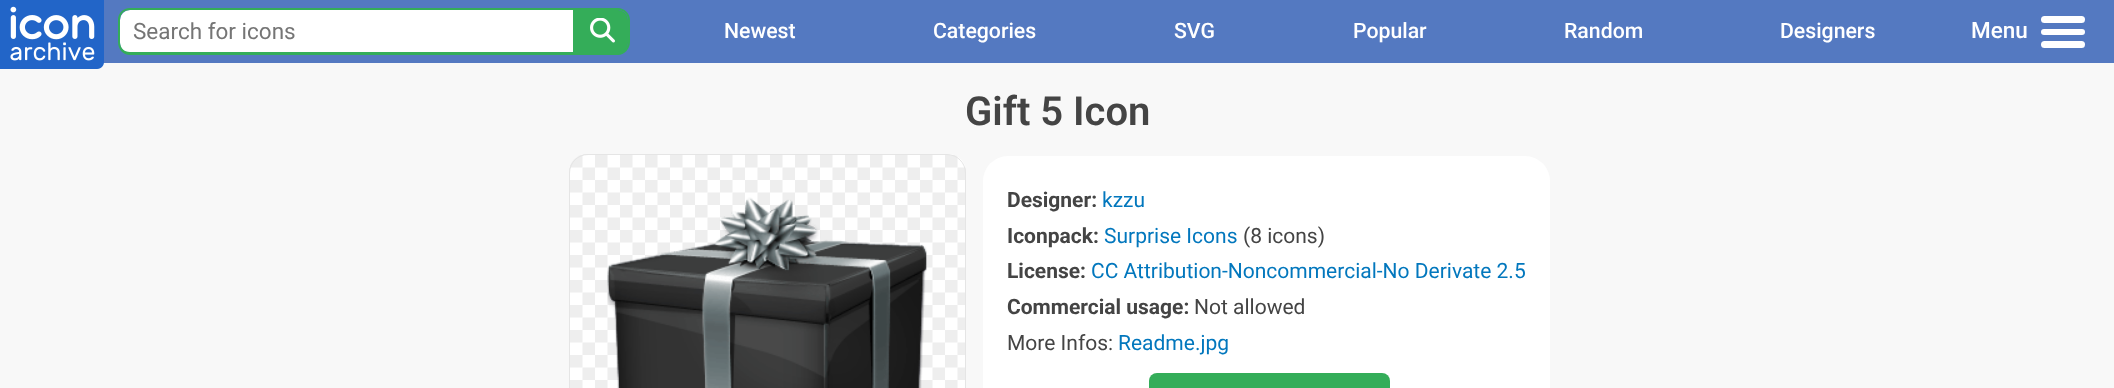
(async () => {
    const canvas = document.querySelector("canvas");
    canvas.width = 2114;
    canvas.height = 388;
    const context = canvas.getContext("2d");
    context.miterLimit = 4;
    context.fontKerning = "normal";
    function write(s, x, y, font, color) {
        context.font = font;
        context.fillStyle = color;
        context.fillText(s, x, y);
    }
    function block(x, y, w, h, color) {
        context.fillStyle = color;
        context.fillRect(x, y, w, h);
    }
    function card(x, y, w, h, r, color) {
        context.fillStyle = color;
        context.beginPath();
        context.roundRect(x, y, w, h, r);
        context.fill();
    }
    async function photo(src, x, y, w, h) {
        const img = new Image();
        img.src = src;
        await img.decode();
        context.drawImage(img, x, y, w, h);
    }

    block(0, 0, 2114, 388, "rgb(248, 248, 248)");
    block(103, 0, 2011, 63, "rgb(84, 121, 193)");
    await photo("media/1.png", 0, 0, 104, 69);
    context.fillStyle = "rgb(255, 255, 255)";
    context.beginPath();
    context.roundRect(120, 10, 453, 43, [10, 0, 0, 10]);
    context.fill();
    context.fillStyle = "rgb(52, 173, 89)";
    context.beginPath();
    context.moveTo(130, 8);
    context.lineTo(572, 8);
    context.lineTo(572, 55);
    context.lineTo(130, 55);
    context.bezierCurveTo(123, 55, 118, 49, 118, 42);
    context.lineTo(118, 20);
    context.bezierCurveTo(118, 13, 123, 8, 130, 8);
    context.closePath();
    context.moveTo(130, 10);
    context.lineTo(572, 10);
    context.lineTo(572, 52);
    context.lineTo(130, 52);
    context.bezierCurveTo(124, 52, 120, 48, 120, 42);
    context.lineTo(120, 20);
    context.bezierCurveTo(120, 14, 124, 10, 130, 10);
    context.closePath();
    context.fill("evenodd");
    write("Search for icons", 133, 39, "22.5px Roboto", "rgb(117, 117, 117)");
    context.fillStyle = "rgb(52, 173, 89)";
    context.beginPath();
    context.roundRect(573, 10, 55, 43, [0, 10, 10, 0]);
    context.fill();
    context.beginPath();
    context.moveTo(572, 8);
    context.lineTo(618, 8);
    context.bezierCurveTo(624, 8, 630, 13, 630, 20);
    context.lineTo(630, 42);
    context.bezierCurveTo(630, 49, 624, 55, 618, 55);
    context.lineTo(572, 55);
    context.closePath();
    context.moveTo(572, 10);
    context.lineTo(618, 10);
    context.bezierCurveTo(623, 10, 628, 14, 628, 20);
    context.lineTo(628, 42);
    context.bezierCurveTo(628, 48, 623, 52, 618, 52);
    context.lineTo(572, 52);
    context.closePath();
    context.fill("evenodd");
    await photo("media/2.png", 590, 18, 25, 25);
    write("Newest", 724, 38, "500 21.25px Roboto", "rgb(255, 255, 255)");
    write("Categories", 933, 38, "500 21.25px Roboto", "rgb(255, 255, 255)");
    write("SVG", 1174, 38, "500 21.25px Roboto", "rgb(255, 255, 255)");
    write("Popular", 1353, 38, "500 21.25px Roboto", "rgb(255, 255, 255)");
    write("Random", 1564, 38, "500 21.25px Roboto", "rgb(255, 255, 255)");
    write("Designers", 1780, 38, "500 21.25px Roboto", "rgb(255, 255, 255)");
    write("Menu", 1971, 38, "500 22.5px Roboto", "rgb(255, 255, 255)");
    card(2041, 16, 44, 7, 3.5, "rgb(255, 255, 255)");
    card(2041, 29, 44, 6, 3, "rgb(255, 255, 255)");
    card(2041, 41, 44, 7, 3.5, "rgb(255, 255, 255)");
    write("Gift 5 Icon", 965, 125, "600 40px Roboto", "rgb(68, 68, 68)");
    await photo("media/3.png", 569, 154, 397, 234);
    context.beginPath();
    context.roundRect(569.5, 154.5, 396, 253, 18.5);
    context.strokeStyle = "rgb(229, 229, 229)";
    context.stroke();
    await photo("media/4.png", 607, 197, 320, 191);
    card(983, 156, 567, 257, 25, "rgb(255, 255, 255)");
    write("Designer:", 1007, 207, "bold 21px Roboto", "rgb(68, 68, 68)");
    write("kzzu", 1102, 207, "21px Roboto", "rgb(2, 119, 189)");
    write("Iconpack:", 1007, 243, "bold 21px Roboto", "rgb(68, 68, 68)");
    write("Surprise Icons", 1104, 243, "21px Roboto", "rgb(2, 119, 189)");
    write("(8 icons)", 1243, 243, "21px Roboto", "rgb(68, 68, 68)");
    write("License:", 1007, 278, "bold 21px Roboto", "rgb(68, 68, 68)");
    write("CC Attribution-Noncommercial-No Derivate 2.5", 1091, 278, "21px Roboto", "rgb(2, 119, 189)");
    write("Commercial usage:", 1007, 314, "bold 21px Roboto", "rgb(68, 68, 68)");
    write("Not allowed", 1194, 314, "21px Roboto", "rgb(68, 68, 68)");
    write("More Infos:", 1007, 350, "21px Roboto", "rgb(68, 68, 68)");
    write("Readme.jpg", 1118, 350, "21px Roboto", "rgb(2, 119, 189)");
    card(1149, 373, 241, 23, 8, "rgb(52, 173, 89)");
})();
